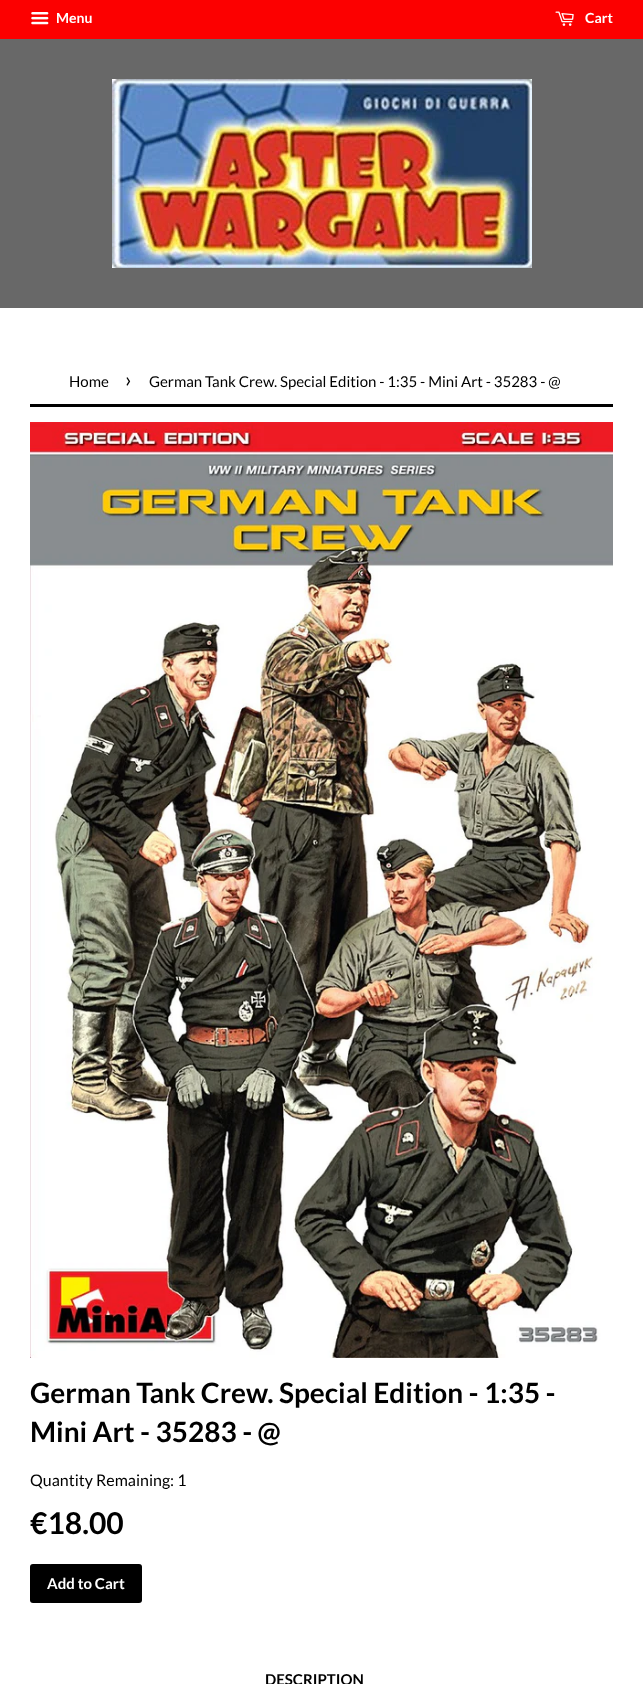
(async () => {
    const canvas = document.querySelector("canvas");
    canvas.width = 643;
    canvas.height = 1684;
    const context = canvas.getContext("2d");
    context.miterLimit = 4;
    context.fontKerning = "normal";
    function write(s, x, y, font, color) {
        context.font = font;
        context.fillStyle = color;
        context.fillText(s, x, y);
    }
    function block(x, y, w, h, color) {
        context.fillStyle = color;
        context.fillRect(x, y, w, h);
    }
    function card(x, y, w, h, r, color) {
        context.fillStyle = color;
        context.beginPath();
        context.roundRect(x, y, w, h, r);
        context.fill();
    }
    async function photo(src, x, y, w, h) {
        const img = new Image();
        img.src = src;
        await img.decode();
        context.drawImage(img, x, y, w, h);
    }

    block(0, 0, 643, 1684, "rgb(255, 255, 255)");
    block(0, 0, 643, 39, "rgb(252, 0, 0)");
    await photo("media/1.png", 31, 12, 18, 13);
    write("Menu", 56, 23, "bold 14px Lato", "rgb(255, 255, 255)");
    await photo("media/2.png", 555, 11, 19, 15);
    write("Cart", 585, 23, "bold 14px Lato", "rgb(255, 255, 255)");
    block(0, 39, 643, 269, "rgb(104, 104, 104)");
    await photo("media/3.png", 112, 79, 420, 189);
    block(30, 404, 583, 3, "rgb(0, 0, 0)");
    write("Home", 69, 387, "15px Lato", "rgb(0, 0, 0)");
    write("›", 125, 387, "21px Lato", "rgb(0, 0, 0)");
    write("German Tank Crew. Special Edition - 1:35 - Mini Art - 35283 - @", 149, 387, "15px Lato", "rgb(0, 0, 0)");
    await photo("media/4.png", 30, 422, 583, 936);
    write("German Tank Crew. Special Edition - 1:35 -", 30, 1403, "bold 28px Lato", "rgb(0, 0, 0)");
    write("Mini Art - 35283 - @", 30, 1442, "bold 28px Lato", "rgb(0, 0, 0)");
    write("Quantity Remaining: 1", 30, 1486, "16px Lato", "rgb(0, 0, 0)");
    write("€18.00", 30, 1534, "bold 30px Lato", "rgb(0, 0, 0)");
    card(30, 1564, 112, 39, 3, "rgb(0, 0, 0)");
    write("Add to Cart", 47, 1589, "bold 15px Lato", "rgb(255, 255, 255)");
    write("DESCRIPTION", 265, 1685, "bold 15px Lato", "rgb(0, 0, 0)");
})();
